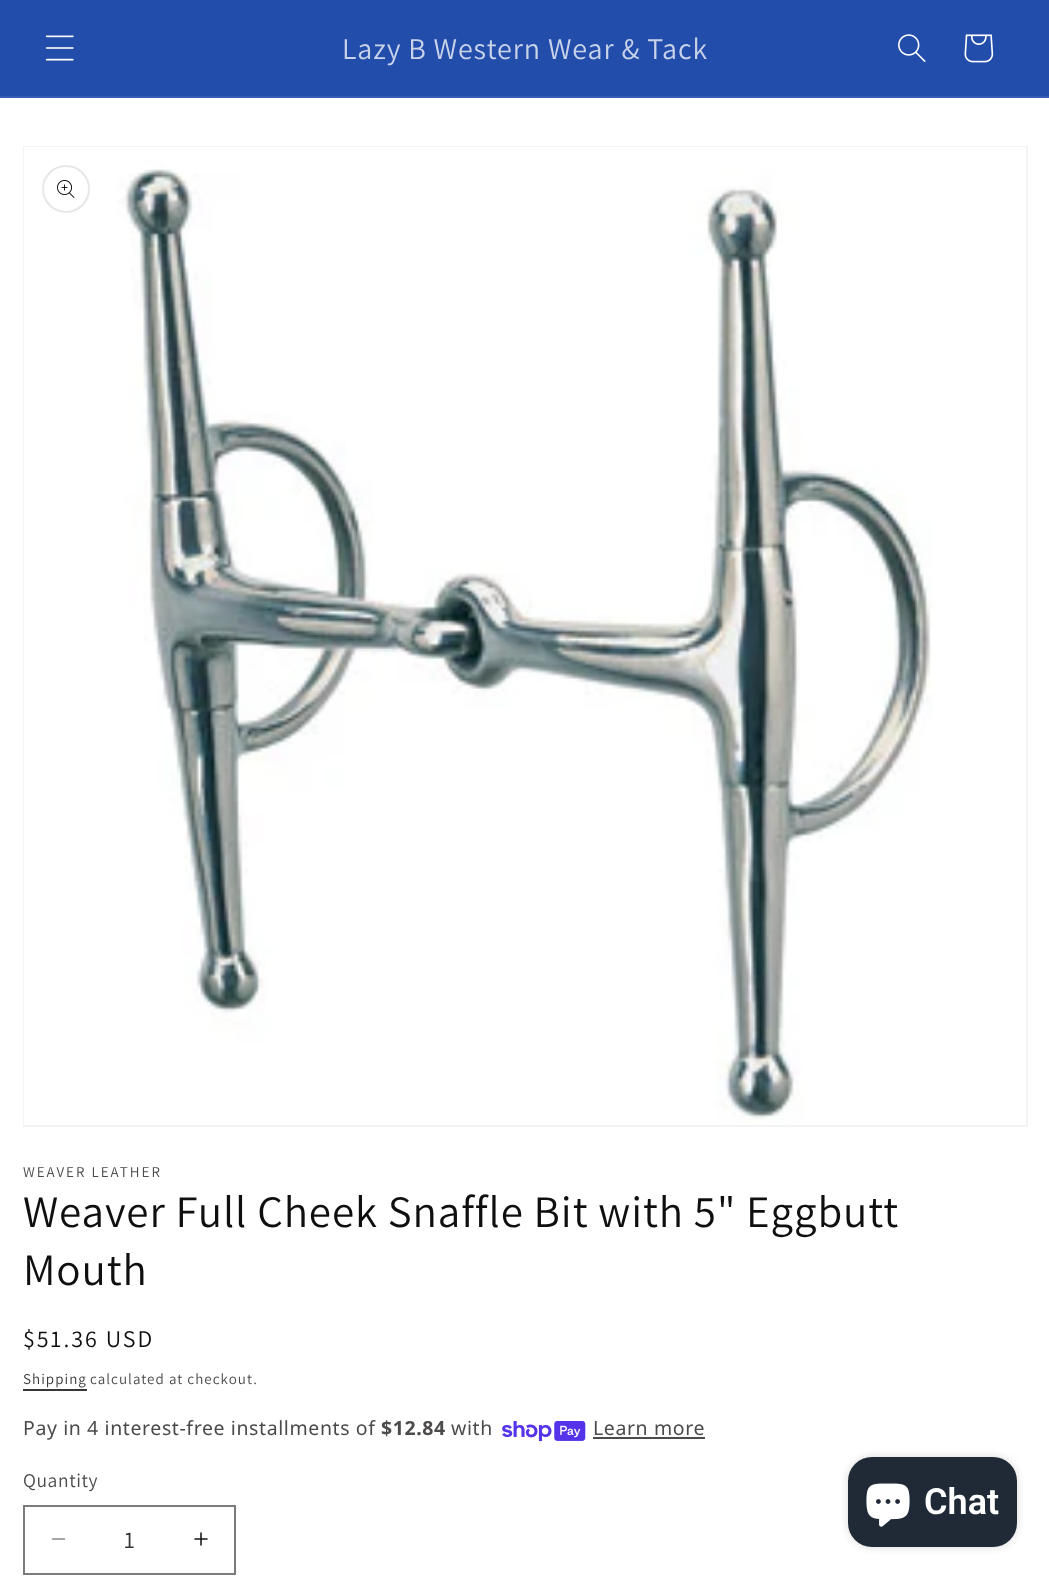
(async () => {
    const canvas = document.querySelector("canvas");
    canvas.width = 1049;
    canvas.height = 1578;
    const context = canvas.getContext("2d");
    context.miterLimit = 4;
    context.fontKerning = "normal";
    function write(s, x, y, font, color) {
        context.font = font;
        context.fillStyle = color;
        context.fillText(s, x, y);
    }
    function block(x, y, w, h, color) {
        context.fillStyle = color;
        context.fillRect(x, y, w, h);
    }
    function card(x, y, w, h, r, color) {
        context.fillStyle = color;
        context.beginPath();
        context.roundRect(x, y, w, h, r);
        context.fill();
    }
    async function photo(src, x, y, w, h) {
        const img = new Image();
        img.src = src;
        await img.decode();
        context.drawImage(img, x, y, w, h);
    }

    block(0, 0, 1049, 1578, "rgb(255, 255, 255)");
    block(0, 0, 1049, 96, "rgb(35, 77, 171)");
    block(0, 96, 1049, 2, "rgb(53, 91, 178)");
    await photo("media/1.png", 45, 35, 29, 26);
    context.letterSpacing = "0.9px";
    write("Lazy B Western Wear & Tack", 342, 59, "30px Assistant", "rgb(200, 211, 234)");
    await photo("media/2.png", 898, 34, 28, 28);
    await photo("media/3.png", 964, 34, 30, 29);
    context.strokeStyle = "rgb(243, 243, 243)";
    context.lineWidth = 2;
    context.strokeRect(24, 147, 1003, 979);
    await photo("media/4.png", 24, 147, 1002, 978);
    context.beginPath();
    context.arc(66, 189, 23, 0, Math.PI * 2);
    context.strokeStyle = "rgb(231, 231, 231)";
    context.stroke();
    await photo("media/5.png", 57, 180, 18, 18);
    context.letterSpacing = "2px";
    write("WEAVER LEATHER", 23, 1177, "15px Assistant", "rgb(76, 74, 74)");
    context.letterSpacing = "0.9px";
    write("Weaver Full Cheek Snaffle Bit with 5\" Eggbutt", 23, 1227, "45px Assistant", "rgb(16, 14, 14)");
    write("Mouth", 23, 1285, "45px Assistant", "rgb(16, 14, 14)");
    context.letterSpacing = "2px";
    write("$51.36 USD", 23, 1347, "24px Assistant", "rgb(16, 14, 14)");
    context.letterSpacing = "1.05px";
    write("Shipping", 23, 1384, "15px Assistant", "rgb(54, 54, 54)");
    block(23, 1389, 64, 2, "rgb(54, 54, 54)");
    write("calculated at checkout.", 90, 1384, "15px Assistant", "rgb(76, 74, 74)");
    context.letterSpacing = "0.6px";
    write("Pay in 4 interest-free installments of", 23, 1435, "19.5px Noto Sans", "rgb(76, 74, 74)");
    write("$12.84", 381, 1435, "bold 19.5px Noto Sans", "rgb(76, 74, 74)");
    write("with", 451, 1435, "19.5px Noto Sans", "rgb(76, 74, 74)");
    await photo("media/6.png", 502, 1421, 84, 21);
    write("Learn more", 593, 1435, "19.5px Noto Sans", "rgb(76, 74, 74)");
    block(593, 1437, 112, 2, "rgb(76, 74, 74)");
    write("Quantity", 23, 1487, "19.5px Assistant", "rgb(76, 74, 74)");
    await photo("media/7.png", 51, 1538, 15, 2);
    await photo("media/8.png", 194, 1532, 14, 14);
    context.strokeStyle = "rgb(124, 122, 122)";
    context.strokeRect(24, 1506, 211, 68);
    context.letterSpacing = "0px";
    write("1", 124, 1548, "24px Assistant", "rgb(54, 54, 54)");
    context.fillStyle = "rgba(0, 0, 0, 0.15)";
    context.filter = "blur(4px)";
    context.beginPath();
    context.roundRect(848, 1457, 169, 90, 24);
    context.fill();
    context.filter = "none";
    card(848, 1457, 169, 90, 24, "rgb(32, 42, 54)");
    await photo("media/9.png", 866, 1483, 44, 44);
    write("Chat", 924, 1514, "600 36px Roboto", "rgb(255, 255, 255)");
})();
